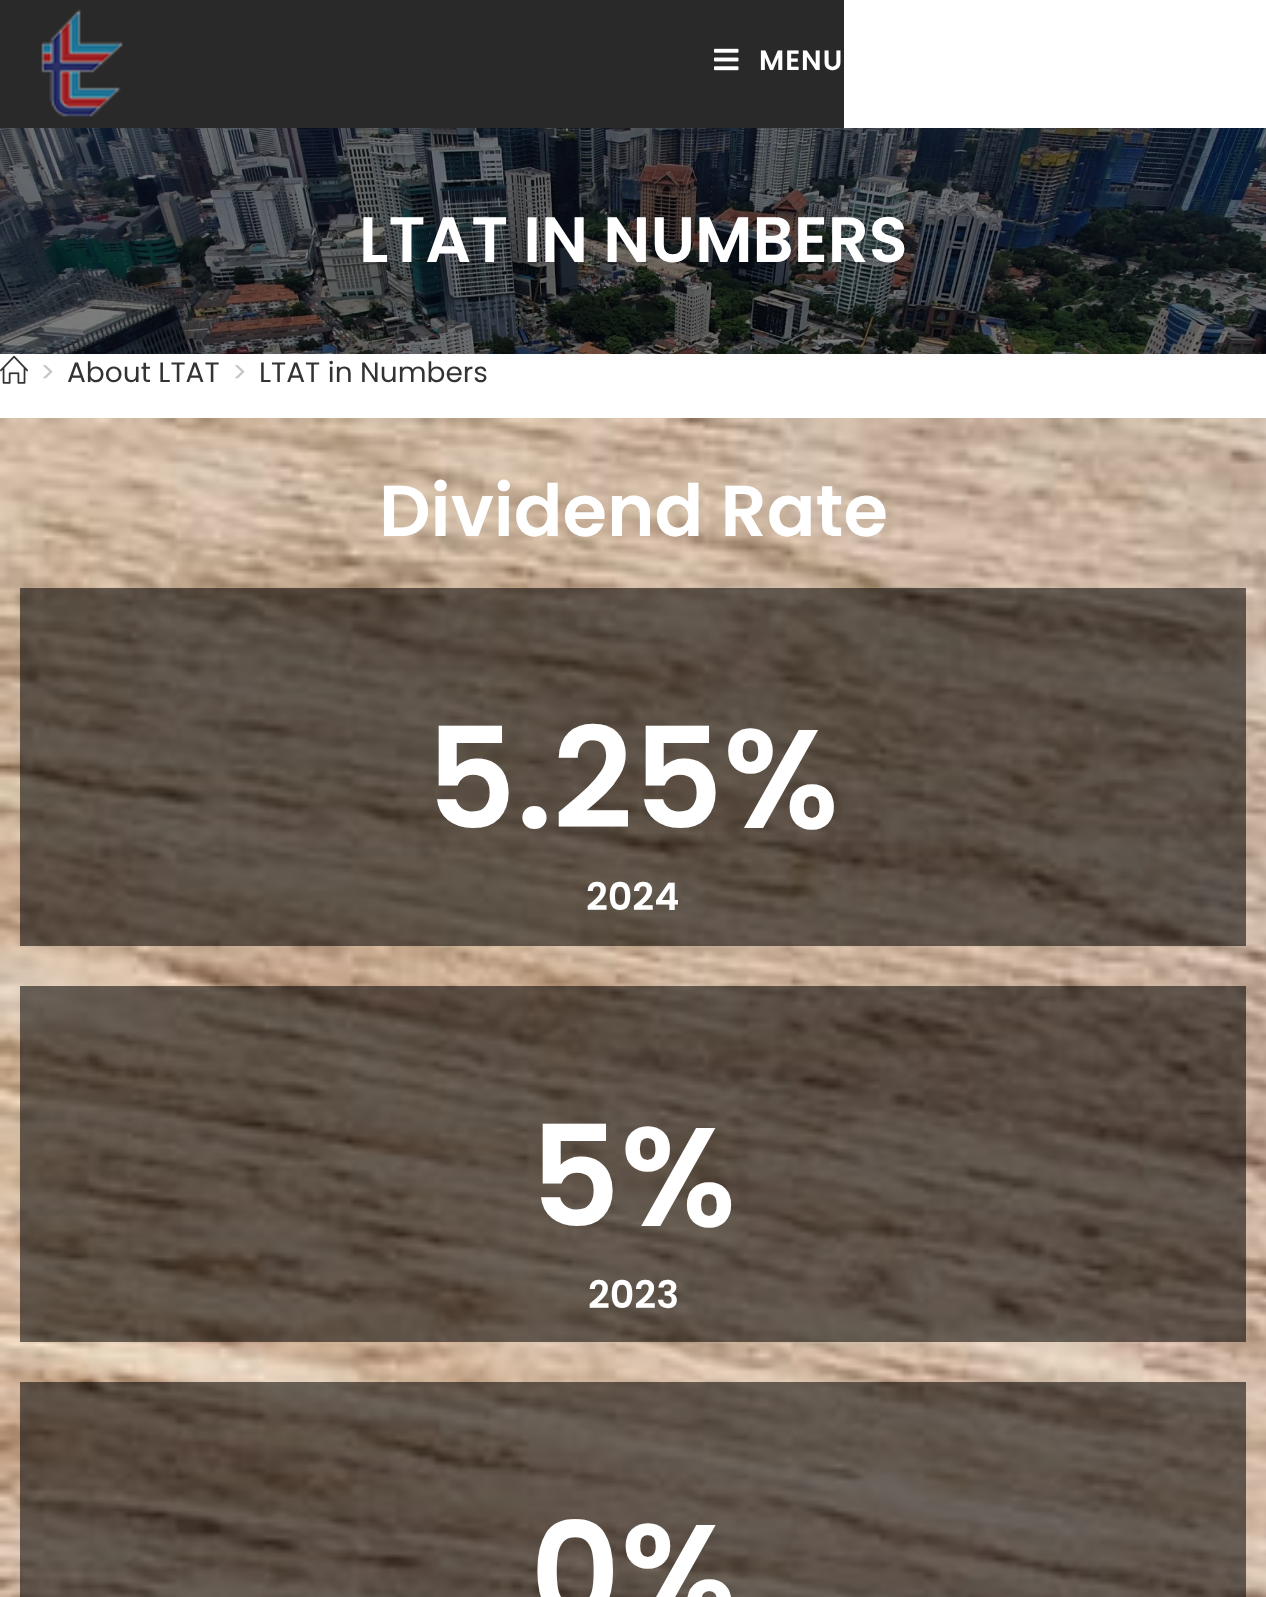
(async () => {
    const canvas = document.querySelector("canvas");
    canvas.width = 1266;
    canvas.height = 1597;
    const context = canvas.getContext("2d");
    context.miterLimit = 4;
    context.fontKerning = "normal";
    function write(s, x, y, font, color) {
        context.font = font;
        context.fillStyle = color;
        context.fillText(s, x, y);
    }
    function block(x, y, w, h, color) {
        context.fillStyle = color;
        context.fillRect(x, y, w, h);
    }
    async function photo(src, x, y, w, h) {
        const img = new Image();
        img.src = src;
        await img.decode();
        context.drawImage(img, x, y, w, h);
    }

    block(0, 0, 1266, 1597, "rgb(255, 255, 255)");
    block(0, 0, 844, 128, "rgb(41, 41, 41)");
    await photo("media/1.png", 41, 9, 82, 108);
    await photo("media/2.png", 714, 48, 25, 23);
    context.letterSpacing = "1px";
    write("MENU", 759, 70, "600 28px Poppins", "rgb(255, 255, 255)");
    await photo("media/3.png", 0, 128, 1266, 226);
    context.letterSpacing = "0px";
    write("LTAT IN NUMBERS", 359, 262, "600 64px Poppins", "rgb(255, 255, 255)");
    await photo("media/4.png", 0, 355, 28, 29);
    write(">", 40, 382, "28px Poppins", "rgb(198, 198, 198)");
    write("About LTAT", 67, 382, "28px Poppins", "rgb(51, 51, 51)");
    write(">", 232, 382, "28px Poppins", "rgb(198, 198, 198)");
    write("LTAT in Numbers", 259, 382, "28px Poppins", "rgb(51, 51, 51)");
    await photo("media/5.png", 0, 418, 1266, 1179);
    write("Dividend Rate", 379, 536, "600 72px Poppins", "rgb(255, 255, 255)");
    block(20, 588, 1226, 358, "rgba(0, 0, 0, 0.55)");
    write("5.25%", 426, 828, "600 140px Poppins", "rgb(255, 255, 255)");
    write("2024", 586, 910, "600 38px Poppins", "rgb(255, 255, 255)");
    block(20, 986, 1226, 356, "rgba(0, 0, 0, 0.55)");
    write("5%", 530, 1226, "600 140px Poppins", "rgb(255, 255, 255)");
    write("2023", 588, 1308, "600 38px Poppins", "rgb(255, 255, 255)");
    block(20, 1382, 1226, 215, "rgba(0, 0, 0, 0.55)");
    write("0%", 530, 1623, "600 140px Poppins", "rgb(255, 255, 255)");
})();
